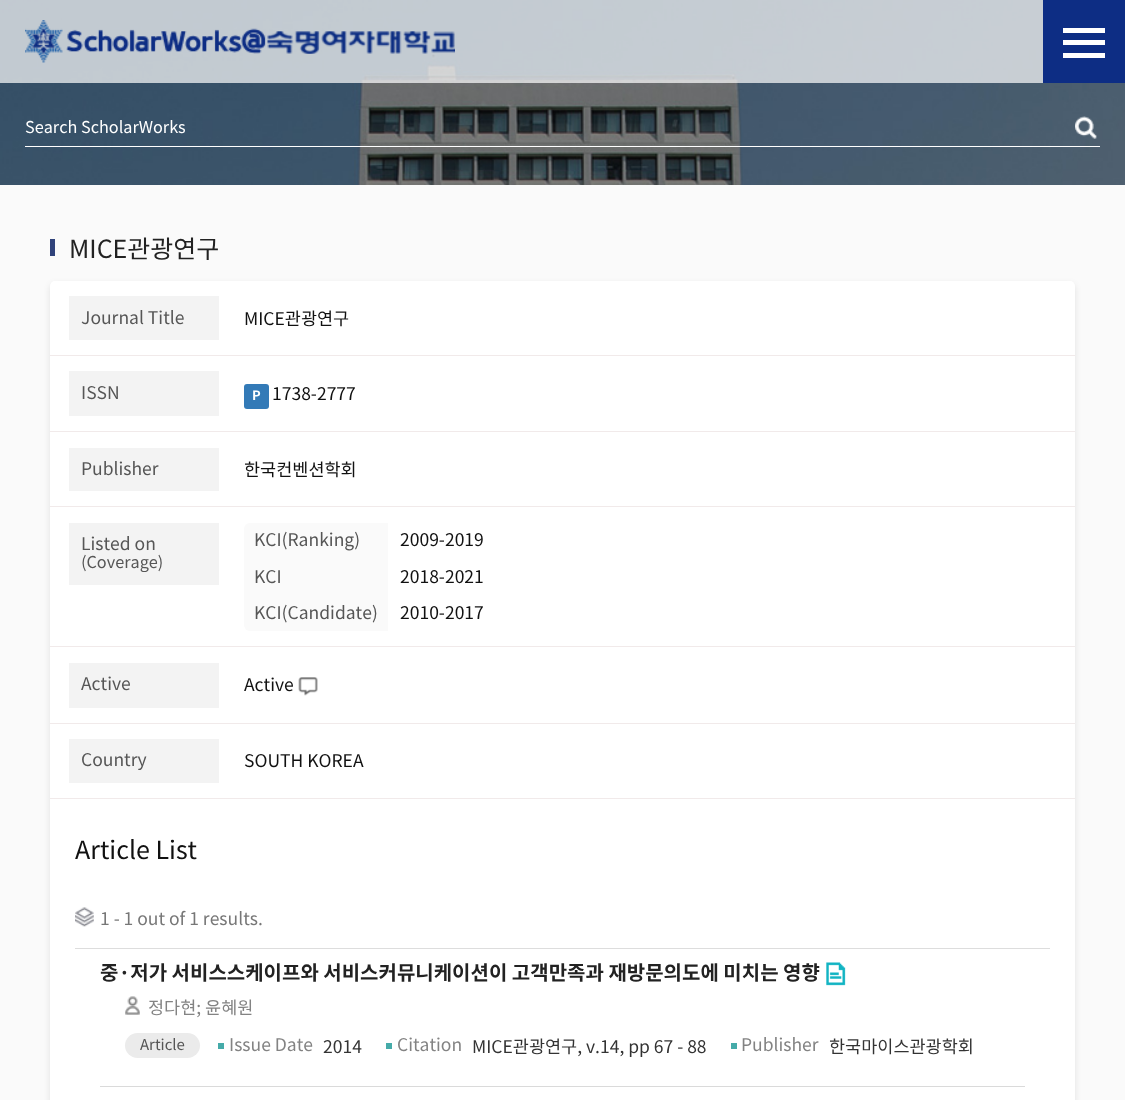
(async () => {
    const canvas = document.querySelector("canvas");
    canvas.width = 1125;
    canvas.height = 1100;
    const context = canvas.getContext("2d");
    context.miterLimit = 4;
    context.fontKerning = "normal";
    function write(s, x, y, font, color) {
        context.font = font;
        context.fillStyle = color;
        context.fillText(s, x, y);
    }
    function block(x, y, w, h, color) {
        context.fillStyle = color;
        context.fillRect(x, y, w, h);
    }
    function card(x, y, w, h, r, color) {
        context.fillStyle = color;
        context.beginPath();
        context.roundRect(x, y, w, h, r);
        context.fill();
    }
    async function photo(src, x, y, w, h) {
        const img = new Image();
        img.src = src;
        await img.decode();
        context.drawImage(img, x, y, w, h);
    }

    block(0, 0, 1125, 1100, "rgb(250, 250, 250)");
    await photo("media/1.png", 0, 0, 1125, 185);
    block(0, 0, 1043, 83, "rgba(255, 255, 255, 0.7)");
    await photo("media/2.png", 25, 20, 430, 43);
    block(1043, 0, 82, 83, "rgb(13, 45, 132)");
    block(1063, 28, 42, 5, "rgb(255, 255, 255)");
    block(1063, 40, 42, 5, "rgb(255, 255, 255)");
    block(1063, 53, 42, 5, "rgb(255, 255, 255)");
    block(25, 146, 1075, 1, "rgb(255, 255, 255)");
    write("Search ScholarWorks", 25, 133, "16.25px Noto Sans KR", "rgb(255, 255, 255)");
    await photo("media/3.png", 1075, 116, 22, 23);
    block(50, 239, 5, 17, "rgb(48, 66, 122)");
    write("MICE관광연구", 69, 258, "25px Noto Sans KR", "rgb(34, 34, 34)");
    context.fillStyle = "rgba(0, 0, 0, 0.1)";
    context.filter = "blur(3px)";
    context.beginPath();
    context.roundRect(50, 284, 1025, 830, 5);
    context.fill();
    context.filter = "none";
    card(50, 281, 1025, 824, 5, "rgb(255, 255, 255)");
    block(50, 355, 1025, 1, "rgb(241, 234, 234)");
    block(69, 296, 150, 44, "rgb(243, 243, 243)");
    write("Journal Title", 81, 324, "17.5px Noto Sans KR", "rgb(86, 86, 86)");
    write("MICE관광연구", 244, 325, "17.5px Noto Sans KR", "rgb(17, 17, 17)");
    block(50, 431, 1025, 1, "rgb(241, 234, 234)");
    block(69, 371, 150, 45, "rgb(243, 243, 243)");
    write("ISSN", 81, 399, "17.5px Noto Sans KR", "rgb(86, 86, 86)");
    card(244, 384, 25, 25, 3, "rgb(51, 122, 183)");
    write("P", 252, 400, "bold 13px Noto Sans KR", "rgb(255, 255, 255)");
    write("1738-2777", 272, 400, "17.5px Noto Sans KR", "rgb(17, 17, 17)");
    block(50, 506, 1025, 1, "rgb(241, 234, 234)");
    block(69, 448, 150, 43, "rgb(243, 243, 243)");
    write("Publisher", 81, 475, "17.5px Noto Sans KR", "rgb(86, 86, 86)");
    write("한국컨벤션학회", 244, 476, "17.5px Noto Sans KR", "rgb(17, 17, 17)");
    block(50, 646, 1025, 1, "rgb(241, 234, 234)");
    block(69, 523, 150, 62, "rgb(243, 243, 243)");
    write("Listed on", 81, 550, "17.5px Noto Sans KR", "rgb(86, 86, 86)");
    write("(Coverage)", 81, 568, "16.25px Noto Sans KR", "rgb(86, 86, 86)");
    context.fillStyle = "rgb(250, 250, 250)";
    context.beginPath();
    context.roundRect(244, 523, 144, 36, [6, 0, 0, 0]);
    context.fill();
    write("KCI(Ranking)", 254, 546, "17.5px Noto Sans KR", "rgb(86, 86, 86)");
    write("2009-2019", 400, 546, "17.5px Noto Sans KR", "rgb(17, 17, 17)");
    block(244, 559, 144, 36, "rgb(250, 250, 250)");
    write("KCI", 254, 583, "17.5px Noto Sans KR", "rgb(86, 86, 86)");
    write("2018-2021", 400, 583, "17.5px Noto Sans KR", "rgb(17, 17, 17)");
    context.fillStyle = "rgb(250, 250, 250)";
    context.beginPath();
    context.roundRect(244, 595, 144, 36, [0, 0, 0, 6]);
    context.fill();
    write("KCI(Candidate)", 254, 619, "17.5px Noto Sans KR", "rgb(86, 86, 86)");
    write("2010-2017", 400, 619, "17.5px Noto Sans KR", "rgb(17, 17, 17)");
    block(50, 723, 1025, 1, "rgb(241, 234, 234)");
    block(69, 663, 150, 45, "rgb(243, 243, 243)");
    write("Active", 81, 690, "17.5px Noto Sans KR", "rgb(86, 86, 86)");
    write("Active", 244, 691, "17.5px Noto Sans KR", "rgb(17, 17, 17)");
    await photo("media/4.png", 298, 677, 20, 19);
    block(50, 798, 1025, 1, "rgb(241, 234, 234)");
    block(69, 739, 150, 44, "rgb(243, 243, 243)");
    write("Country", 81, 766, "17.5px Noto Sans KR", "rgb(86, 86, 86)");
    write("SOUTH KOREA", 244, 767, "17.5px Noto Sans KR", "rgb(17, 17, 17)");
    write("Article List", 75, 859, "25px Noto Sans KR", "rgb(17, 17, 17)");
    block(75, 948, 975, 1, "rgb(221, 221, 221)");
    await photo("media/5.png", 75, 907, 19, 20);
    write("1 - 1 out of 1 results.", 100, 925, "17.5px Noto Sans KR", "rgb(119, 119, 119)");
    block(100, 1086, 925, 1, "rgb(218, 218, 218)");
    write("중·저가 서비스스케이프와 서비스커뮤니케이션이 고객만족과 재방문의도에 미치는 영향", 100, 980, "bold 20px Noto Sans KR", "rgb(34, 34, 34)");
    await photo("media/6.png", 826, 962, 20, 24);
    await photo("media/7.png", 125, 996, 15, 19);
    write("정다현; 윤혜원", 148, 1014, "17.5px Noto Sans KR", "rgb(131, 131, 131)");
    card(125, 1033, 75, 25, 12.5, "rgb(235, 235, 235)");
    write("Article", 140, 1050, "15px Noto Sans KR", "rgb(86, 86, 86)");
    block(218, 1043, 6, 6, "rgb(69, 171, 169)");
    write("Issue Date", 229, 1051, "17.5px Noto Sans KR", "rgb(131, 131, 131)");
    write("2014", 323, 1053, "17.5px Noto Sans KR", "rgb(51, 51, 51)");
    block(386, 1043, 6, 6, "rgb(69, 171, 169)");
    write("Citation", 397, 1051, "17.5px Noto Sans KR", "rgb(131, 131, 131)");
    write("MICE관광연구, v.14, pp 67 - 88", 472, 1053, "17.5px Noto Sans KR", "rgb(51, 51, 51)");
    block(731, 1043, 6, 6, "rgb(69, 171, 169)");
    write("Publisher", 741, 1051, "17.5px Noto Sans KR", "rgb(131, 131, 131)");
    write("한국마이스관광학회", 829, 1053, "17.5px Noto Sans KR", "rgb(51, 51, 51)");
})();
